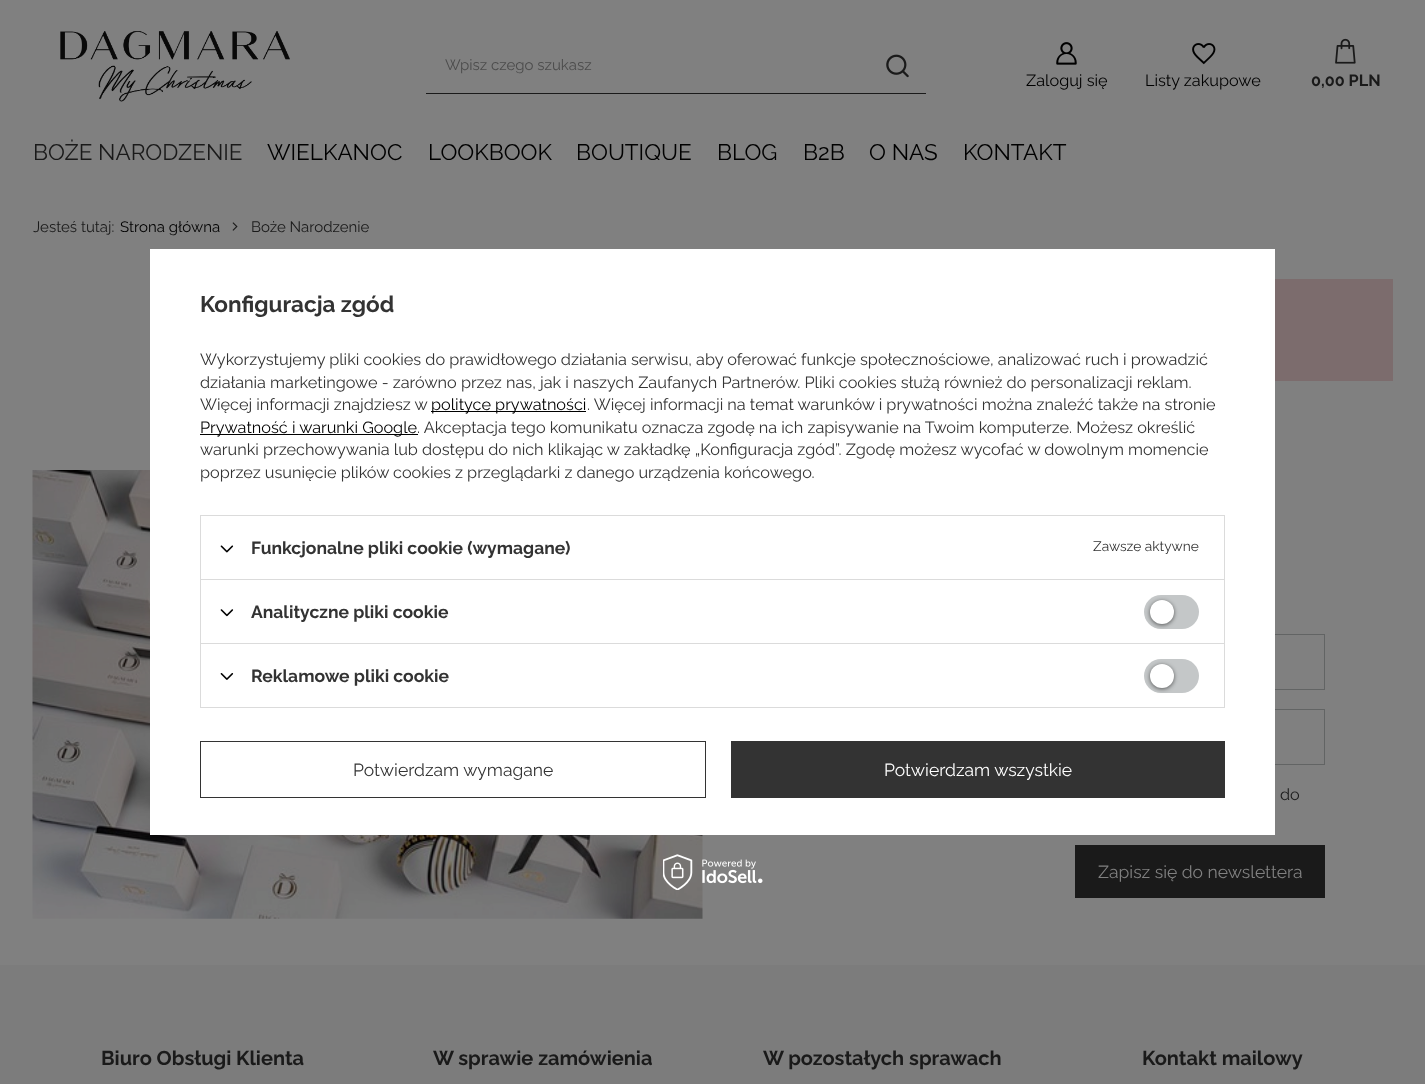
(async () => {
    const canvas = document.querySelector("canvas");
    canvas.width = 1425;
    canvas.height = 1084;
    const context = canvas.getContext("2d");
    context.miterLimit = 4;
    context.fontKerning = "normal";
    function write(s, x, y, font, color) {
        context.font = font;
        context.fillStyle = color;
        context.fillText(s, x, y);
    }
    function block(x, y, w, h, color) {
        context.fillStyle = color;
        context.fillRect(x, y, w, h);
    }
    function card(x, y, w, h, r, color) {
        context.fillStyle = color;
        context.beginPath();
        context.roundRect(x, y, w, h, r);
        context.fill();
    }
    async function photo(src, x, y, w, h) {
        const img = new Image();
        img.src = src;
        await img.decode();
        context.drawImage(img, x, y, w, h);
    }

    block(0, 0, 1425, 1084, "rgb(128, 128, 128)");
    await photo("media/1.png", 60, 31, 230, 71);
    block(426, 93, 500, 1, "rgb(26, 26, 26)");
    write("Wpisz czego szukasz", 445, 70, "15px Raleway", "rgb(76, 76, 76)");
    await photo("media/2.png", 886, 54, 23, 24);
    await photo("media/3.png", 1056, 42, 21, 23);
    write("Zaloguj się", 1026, 86, "16.25px Raleway", "rgb(0, 0, 0)");
    await photo("media/4.png", 1192, 43, 24, 22);
    write("Listy zakupowe", 1145, 86, "16.25px Raleway", "rgb(0, 0, 0)");
    await photo("media/5.png", 1335, 38, 21, 26);
    write("0,00 PLN", 1311, 86, "bold 16.25px Raleway", "rgb(26, 26, 26)");
    write("BOŻE NARODZENIE", 33, 160, "22.5px Raleway", "rgb(26, 26, 26)");
    write("WIELKANOC", 267, 160, "22.5px Raleway", "rgb(0, 0, 0)");
    write("LOOKBOOK", 428, 160, "22.5px Raleway", "rgb(0, 0, 0)");
    write("BOUTIQUE", 576, 160, "22.5px Raleway", "rgb(0, 0, 0)");
    write("BLOG", 717, 160, "22.5px Raleway", "rgb(0, 0, 0)");
    write("B2B", 803, 160, "22.5px Raleway", "rgb(0, 0, 0)");
    write("O NAS", 869, 160, "22.5px Raleway", "rgb(0, 0, 0)");
    write("KONTAKT", 963, 160, "22.5px Raleway", "rgb(0, 0, 0)");
    write("Jesteś tutaj:", 33, 232, "15px Raleway", "rgb(26, 26, 26)");
    write("Strona główna", 120, 232, "15px Raleway", "rgb(0, 0, 0)");
    await photo("media/6.png", 232, 222, 6, 9);
    write("Boże Narodzenie", 251, 232, "15px Raleway", "rgb(26, 26, 26)");
    block(1275, 279, 118, 102, "rgb(124, 108, 109)");
    await photo("media/11.png", 32, 470, 671, 449);
    context.strokeStyle = "rgb(98, 100, 100)";
    context.strokeRect(789.5, 634.5, 535, 55);
    context.strokeRect(789.5, 709.5, 535, 55);
    block(150, 249, 1125, 586, "rgb(255, 255, 255)");
    write("Konfiguracja zgód", 200, 312, "bold 22.5px Raleway", "rgb(51, 51, 51)");
    write("Wykorzystujemy pliki cookies do prawidłowego działania serwisu, aby oferować funkcje społecznościowe, analizować ruch i prowadzić", 200, 365, "16.25px Raleway", "rgb(51, 51, 51)");
    write("działania marketingowe - zarówno przez nas, jak i naszych Zaufanych Partnerów. Pliki cookies służą również do personalizacji reklam.", 200, 388, "16.25px Raleway", "rgb(51, 51, 51)");
    write("Więcej informacji znajdziesz w", 200, 410, "16.25px Raleway", "rgb(51, 51, 51)");
    block(431, 411, 155, 1, "rgb(0, 0, 0)");
    write("polityce prywatności", 431, 410, "16.25px Raleway", "rgb(0, 0, 0)");
    write(". Więcej informacji na temat warunków i prywatności można znaleźć także na stronie", 587, 410, "16.25px Raleway", "rgb(51, 51, 51)");
    block(200, 434, 218, 1, "rgb(0, 0, 0)");
    write("Prywatność i warunki Google", 200, 433, "16.25px Raleway", "rgb(0, 0, 0)");
    write(". Akceptacja tego komunikatu oznacza zgodę na ich zapisywanie na Twoim komputerze. Możesz określić", 417, 433, "16.25px Raleway", "rgb(51, 51, 51)");
    write("warunki przechowywania lub dostępu do nich klikając w zakładkę „Konfiguracja zgód”. Zgodę możesz wycofać w dowolnym momencie", 200, 455, "16.25px Raleway", "rgb(51, 51, 51)");
    write("poprzez usunięcie plików cookies z przeglądarki z danego urządzenia końcowego.", 200, 478, "16.25px Raleway", "rgb(51, 51, 51)");
    block(200, 515, 1025, 1, "rgb(219, 219, 219)");
    block(1224, 515, 1, 64, "rgb(219, 219, 219)");
    block(200, 515, 1, 64, "rgb(219, 219, 219)");
    await photo("media/7.png", 220, 545, 14, 8);
    write("Funkcjonalne pliki cookie (wymagane)", 251, 554, "bold 17.5px Raleway", "rgb(51, 51, 51)");
    write("Zawsze aktywne", 1093, 551, "13.75px Raleway", "rgb(51, 51, 51)");
    block(200, 579, 1025, 1, "rgb(219, 219, 219)");
    block(1224, 579, 1, 64, "rgb(219, 219, 219)");
    block(200, 579, 1, 64, "rgb(219, 219, 219)");
    await photo("media/8.png", 220, 609, 14, 8);
    write("Analityczne pliki cookie", 251, 618, "bold 17.5px Raleway", "rgb(51, 51, 51)");
    card(1144, 595, 55, 34, 17, "rgb(196, 199, 200)");
    context.fillStyle = "rgba(0, 0, 0, 0.56)";
    context.filter = "blur(2px)";
    context.beginPath();
    context.roundRect(1150, 601, 24, 24, 12);
    context.fill();
    context.filter = "none";
    context.fillStyle = "rgb(255, 255, 255)";
    context.beginPath();
    context.arc(1162, 612, 12, 0, Math.PI * 2);
    context.fill();
    context.strokeStyle = "rgb(219, 219, 219)";
    context.strokeRect(200.5, 643.5, 1024, 64);
    await photo("media/9.png", 220, 673, 14, 7);
    write("Reklamowe pliki cookie", 251, 682, "bold 17.5px Raleway", "rgb(51, 51, 51)");
    card(1144, 659, 55, 34, 17, "rgb(196, 199, 200)");
    context.fillStyle = "rgba(0, 0, 0, 0.56)";
    context.filter = "blur(2px)";
    context.beginPath();
    context.roundRect(1150, 665, 24, 24, 12);
    context.fill();
    context.filter = "none";
    context.fillStyle = "rgb(255, 255, 255)";
    context.beginPath();
    context.arc(1162, 676, 12, 0, Math.PI * 2);
    context.fill();
    context.strokeStyle = "rgb(51, 51, 51)";
    context.strokeRect(200.5, 741.5, 505, 56);
    write("Potwierdzam wymagane", 353, 776, "17.5px Raleway", "rgb(51, 51, 51)");
    block(731, 741, 494, 57, "rgb(51, 51, 51)");
    write("Potwierdzam wszystkie", 884, 776, "17.5px Raleway", "rgb(255, 255, 255)");
    await photo("media/10.png", 663, 854, 100, 36);
    write("do", 1280, 800, "16.25px Raleway", "rgb(26, 26, 26)");
    block(1075, 845, 250, 53, "rgb(26, 26, 26)");
    write("Zapisz się do newslettera", 1098, 878, "17.5px Raleway", "rgb(128, 128, 128)");
    block(0, 965, 1425, 119, "rgb(124, 124, 124)");
    write("Biuro Obsługi Klienta", 101, 1065, "bold 20px Raleway", "rgb(26, 26, 26)");
    write("W sprawie zamówienia", 433, 1065, "bold 20px Raleway", "rgb(26, 26, 26)");
    write("W pozostałych sprawach", 763, 1065, "bold 20px Raleway", "rgb(26, 26, 26)");
    write("Kontakt mailowy", 1142, 1065, "bold 20px Raleway", "rgb(26, 26, 26)");
})();
